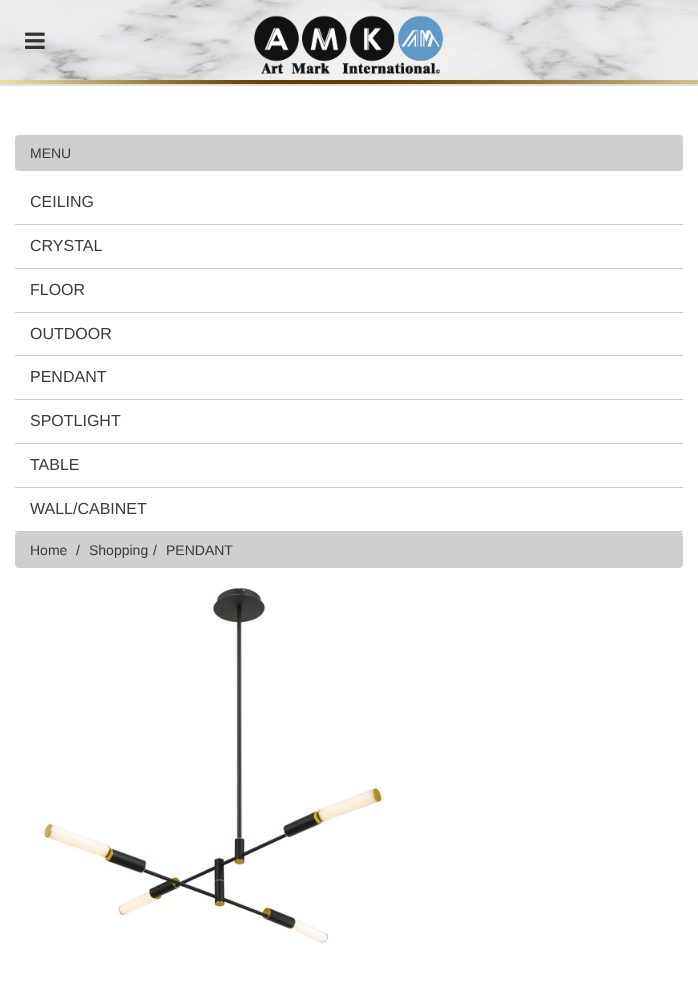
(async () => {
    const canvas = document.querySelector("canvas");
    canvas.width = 698;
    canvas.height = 997;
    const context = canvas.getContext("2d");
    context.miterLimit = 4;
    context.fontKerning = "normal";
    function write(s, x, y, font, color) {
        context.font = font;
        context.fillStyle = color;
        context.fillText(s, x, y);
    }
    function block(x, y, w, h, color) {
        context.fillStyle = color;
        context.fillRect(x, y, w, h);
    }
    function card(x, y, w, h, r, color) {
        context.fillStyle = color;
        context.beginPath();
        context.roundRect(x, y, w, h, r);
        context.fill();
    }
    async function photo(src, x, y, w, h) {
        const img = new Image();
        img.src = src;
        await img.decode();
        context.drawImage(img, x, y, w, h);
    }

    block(0, 0, 698, 997, "rgb(255, 255, 255)");
    await photo("media/1.png", 0, 0, 698, 84);
    block(0, 84, 698, 2, "rgb(224, 224, 224)");
    await photo("media/2.png", 25, 32, 20, 17);
    await photo("media/3.png", 254, 15, 190, 59);
    card(15, 135, 668, 36, 4, "rgb(207, 207, 206)");
    write("MENU", 30, 158, "14px Liberation Sans", "rgb(59, 59, 59)");
    block(15, 224, 668, 1, "rgb(204, 204, 204)");
    write("CEILING", 30, 207, "16px Liberation Sans", "rgb(59, 59, 59)");
    block(15, 268, 668, 1, "rgb(204, 204, 204)");
    write("CRYSTAL", 30, 251, "16px Liberation Sans", "rgb(59, 59, 59)");
    block(15, 312, 668, 1, "rgb(204, 204, 204)");
    write("FLOOR", 30, 295, "16px Liberation Sans", "rgb(59, 59, 59)");
    block(15, 355, 668, 1, "rgb(204, 204, 204)");
    write("OUTDOOR", 30, 339, "16px Liberation Sans", "rgb(59, 59, 59)");
    block(15, 399, 668, 1, "rgb(204, 204, 204)");
    write("PENDANT", 30, 382, "16px Liberation Sans", "rgb(59, 59, 59)");
    block(15, 443, 668, 1, "rgb(204, 204, 204)");
    write("SPOTLIGHT", 30, 426, "16px Liberation Sans", "rgb(59, 59, 59)");
    block(15, 487, 668, 1, "rgb(204, 204, 204)");
    write("TABLE", 30, 470, "16px Liberation Sans", "rgb(59, 59, 59)");
    block(15, 531, 668, 1, "rgb(204, 204, 204)");
    write("WALL/CABINET", 30, 514, "16px Liberation Sans", "rgb(59, 59, 59)");
    card(15, 532, 668, 36, 4, "rgb(207, 207, 206)");
    write("Home", 30, 555, "14px Liberation Sans", "rgb(59, 59, 59)");
    write("/", 76, 555, "14px Liberation Sans", "rgb(59, 59, 59)");
    write("Shopping", 89, 555, "14px Liberation Sans", "rgb(59, 59, 59)");
    write("/", 153, 555, "14px Liberation Sans", "rgb(59, 59, 59)");
    write("PENDANT", 166, 555, "14px Liberation Sans", "rgb(59, 59, 59)");
    await photo("media/4.png", 43, 587, 340, 357);
})();
